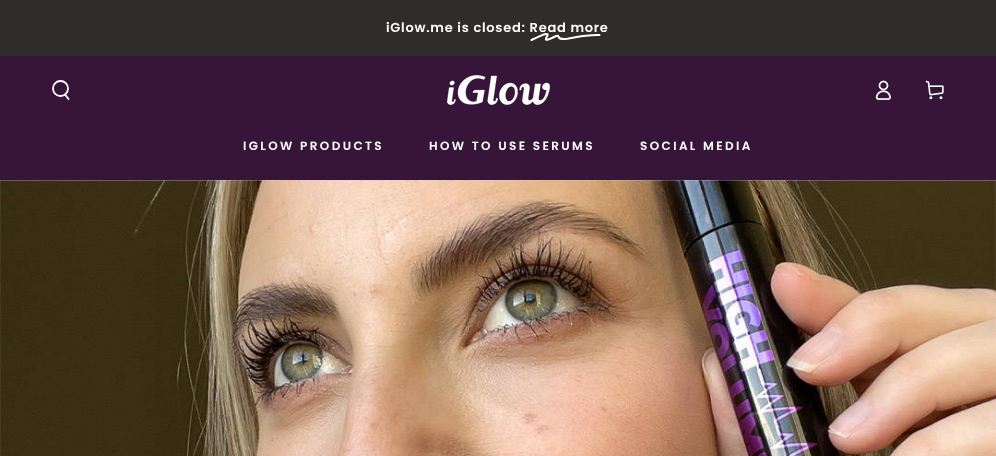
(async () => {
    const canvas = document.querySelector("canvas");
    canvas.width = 996;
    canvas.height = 456;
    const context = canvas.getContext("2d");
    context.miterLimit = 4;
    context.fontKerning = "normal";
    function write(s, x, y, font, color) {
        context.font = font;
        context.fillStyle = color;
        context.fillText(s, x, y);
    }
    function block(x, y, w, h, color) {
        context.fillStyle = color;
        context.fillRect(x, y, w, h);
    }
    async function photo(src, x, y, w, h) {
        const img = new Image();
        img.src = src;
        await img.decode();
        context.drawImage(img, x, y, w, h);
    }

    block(0, 0, 996, 456, "rgb(255, 255, 255)");
    block(0, 0, 996, 56, "rgb(47, 45, 43)");
    context.letterSpacing = "0.75px";
    write("iGlow.me is closed: Read more", 386, 32, "600 13px Poppins", "rgb(255, 255, 255)");
    context.beginPath();
    context.moveTo(531.5, 40);
    context.bezierCurveTo(531.5, 40, 550, 30.5, 547.5, 35.5);
    context.bezierCurveTo(545, 40, 544, 42, 555, 36.5);
    context.bezierCurveTo(562, 33.5, 554, 40, 566, 39);
    context.bezierCurveTo(572, 38.5, 583, 34.5, 599.5, 35);
    context.strokeStyle = "rgb(255, 255, 255)";
    context.lineWidth = 2;
    context.lineCap = "round";
    context.stroke();
    await photo("media/4.png", 0, 180, 996, 276);
    block(0, 180, 996, 1, "rgba(210, 213, 217, 0.3)");
    block(0, 56, 996, 124, "rgb(54, 21, 57)");
    context.beginPath();
    context.arc(60.5, 88.5, 7.5, 0, Math.PI * 2);
    context.lineWidth = 1.8;
    context.stroke();
    context.beginPath();
    context.moveTo(65, 94.5);
    context.lineTo(68.5, 99);
    context.stroke();
    await photo("media/1.png", 447, 75, 103, 30);
    await photo("media/2.png", 875, 80, 16, 20);
    await photo("media/3.png", 925, 80, 19, 20);
    context.letterSpacing = "2.4px";
    write("IGLOW PRODUCTS", 243, 150, "600 12px Poppins", "rgb(255, 255, 255)");
    write("HOW TO USE SERUMS", 429, 150, "600 12px Poppins", "rgb(255, 255, 255)");
    write("SOCIAL MEDIA", 640, 150, "600 12px Poppins", "rgb(255, 255, 255)");
})();
